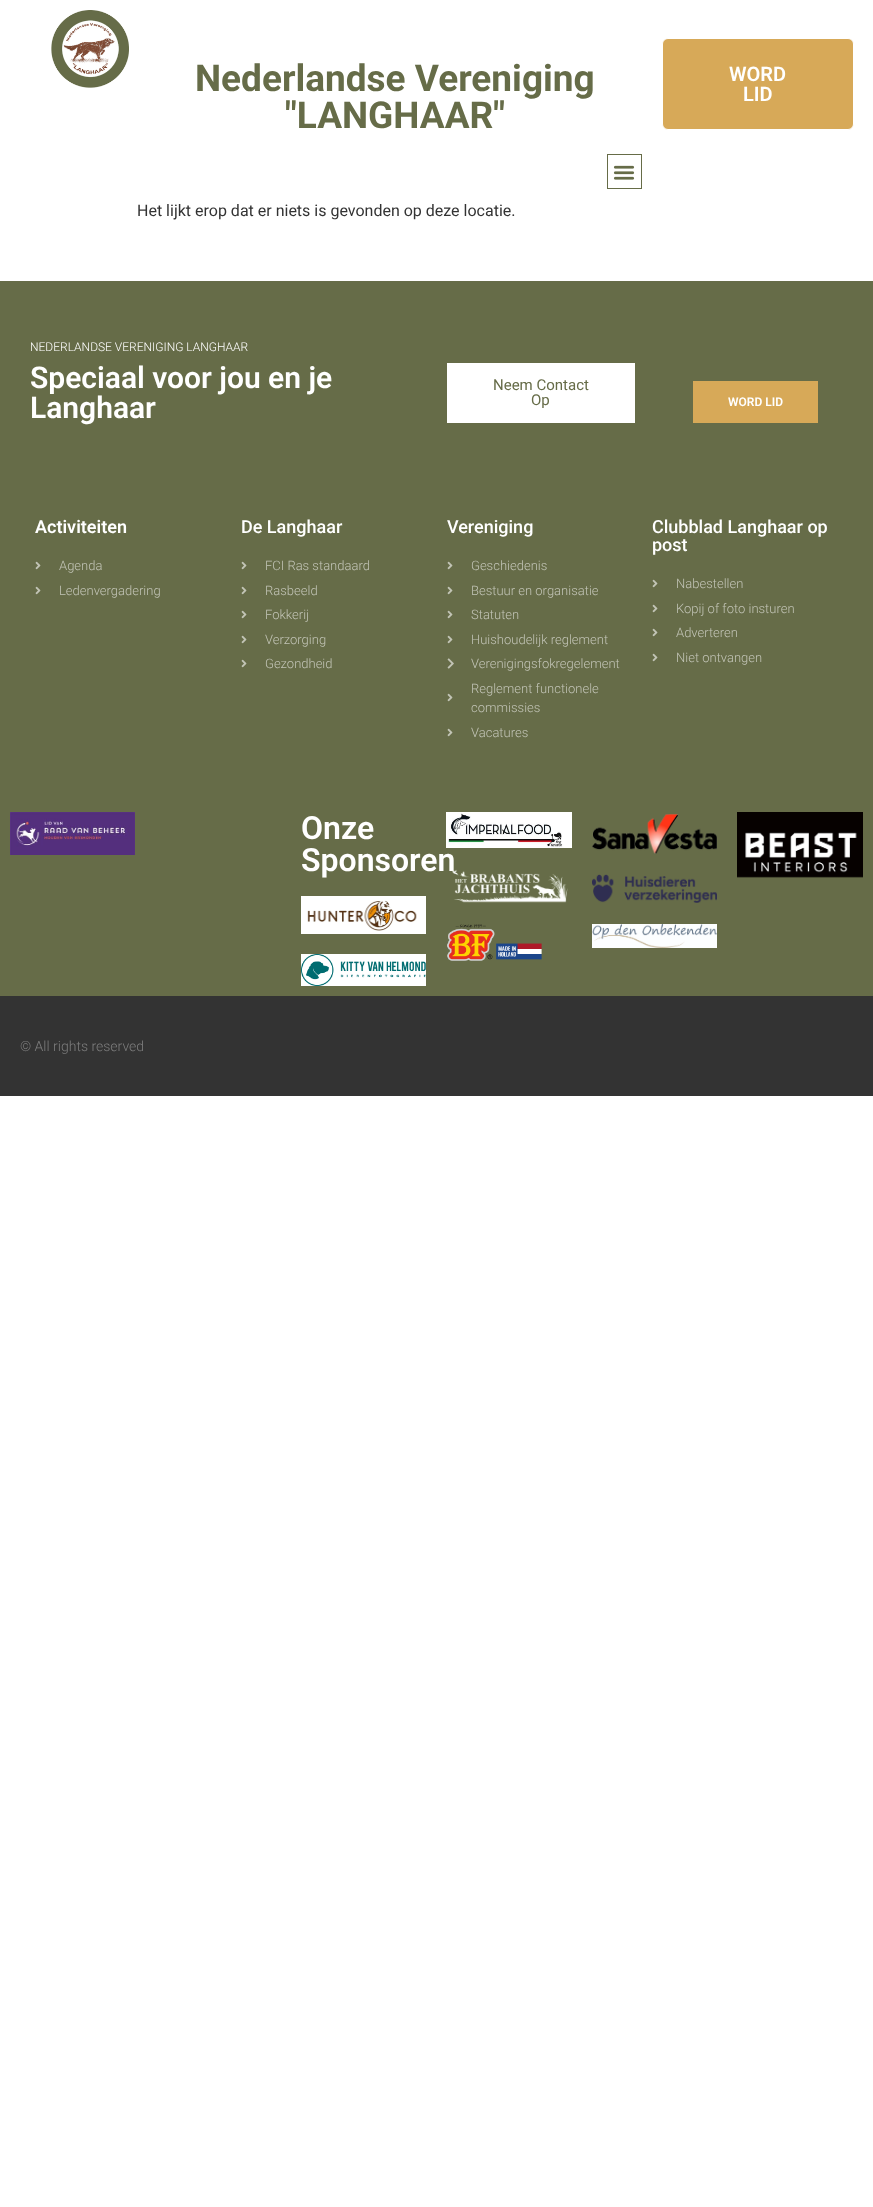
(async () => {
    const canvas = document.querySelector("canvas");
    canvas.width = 873;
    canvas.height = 2207;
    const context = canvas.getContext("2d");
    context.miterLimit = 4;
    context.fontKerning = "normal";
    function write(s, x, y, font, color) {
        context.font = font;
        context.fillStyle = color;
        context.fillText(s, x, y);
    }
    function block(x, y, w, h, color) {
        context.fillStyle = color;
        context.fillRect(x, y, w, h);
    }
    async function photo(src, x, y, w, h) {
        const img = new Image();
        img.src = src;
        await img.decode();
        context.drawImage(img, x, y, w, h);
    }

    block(0, 0, 873, 2207, "rgb(255, 255, 255)");
    await photo("media/1.png", 51, 10, 78, 78);
    write("Nederlandse Vereniging", 195, 91, "bold 37px Roboto", "rgb(102, 108, 72)");
    write("\"LANGHAAR\"", 285, 128, "bold 37px Roboto", "rgb(102, 108, 72)");
    context.strokeStyle = "rgb(102, 108, 72)";
    context.strokeRect(607.5, 154.5, 34, 34);
    await photo("media/2.png", 613, 165, 22, 15);
    context.fillStyle = "rgb(215, 169, 88)";
    context.beginPath();
    context.roundRect(662.5, 38.5, 191, 91, 5.5);
    context.fill();
    context.strokeStyle = "rgb(255, 255, 255)";
    context.stroke();
    write("WORD", 729, 81, "600 20px Roboto", "rgb(255, 255, 255)");
    write("LID", 743, 101, "600 20px Roboto", "rgb(255, 255, 255)");
    write("Het lijkt erop dat er niets is gevonden op deze locatie.", 137, 216, "16px Roboto", "rgb(51, 51, 51)");
    block(0, 281, 873, 715, "rgb(102, 108, 72)");
    write("NEDERLANDSE VERENIGING LANGHAAR", 30, 351, "300 12px Roboto", "rgb(255, 255, 255)");
    write("Speciaal voor jou en je", 30, 388, "600 30px Roboto", "rgb(255, 255, 255)");
    write("Langhaar", 30, 418, "600 30px Roboto", "rgb(255, 255, 255)");
    block(447, 363, 188, 60, "rgb(255, 255, 255)");
    write("Neem Contact", 493, 390, "15px Roboto", "rgb(102, 108, 72)");
    write("Op", 531, 405, "15px Roboto", "rgb(102, 108, 72)");
    block(693, 381, 125, 42, "rgb(215, 169, 88)");
    write("WORD LID", 728, 406, "600 12px Roboto", "rgb(255, 255, 255)");
    write("Activiteiten", 35, 533, "600 18px Roboto", "rgb(255, 255, 255)");
    await photo("media/3.png", 35, 561, 6, 9);
    write("Agenda", 59, 570, "300 13px Roboto", "rgb(194, 196, 182)");
    await photo("media/3.png", 35, 586, 6, 9);
    write("Ledenvergadering", 59, 595, "300 13px Roboto", "rgb(194, 196, 182)");
    write("De Langhaar", 241, 533, "500 18px Roboto", "rgb(255, 255, 255)");
    await photo("media/3.png", 241, 561, 6, 9);
    write("FCI Ras standaard", 265, 570, "300 13px Roboto", "rgb(194, 196, 182)");
    await photo("media/3.png", 241, 586, 6, 9);
    write("Rasbeeld", 265, 595, "300 13px Roboto", "rgb(194, 196, 182)");
    await photo("media/3.png", 241, 610, 6, 9);
    write("Fokkerij", 265, 619, "300 13px Roboto", "rgb(194, 196, 182)");
    await photo("media/3.png", 241, 635, 6, 9);
    write("Verzorging", 265, 644, "300 13px Roboto", "rgb(194, 196, 182)");
    await photo("media/3.png", 241, 659, 6, 9);
    write("Gezondheid", 265, 668, "300 13px Roboto", "rgb(194, 196, 182)");
    write("Vereniging", 447, 533, "500 18px Roboto", "rgb(255, 255, 255)");
    await photo("media/3.png", 447, 561, 6, 9);
    write("Geschiedenis", 471, 570, "300 13px Roboto", "rgb(194, 196, 182)");
    await photo("media/3.png", 447, 586, 6, 9);
    write("Bestuur en organisatie", 471, 595, "300 13px Roboto", "rgb(194, 196, 182)");
    await photo("media/3.png", 447, 610, 6, 9);
    write("Statuten", 471, 619, "300 13px Roboto", "rgb(194, 196, 182)");
    await photo("media/3.png", 447, 635, 6, 9);
    write("Huishoudelijk reglement", 471, 644, "300 13px Roboto", "rgb(194, 196, 182)");
    await photo("media/4.png", 447, 658, 7, 11);
    write("Verenigingsfokregelement", 471, 668, "300 13px Roboto", "rgb(194, 196, 182)");
    await photo("media/3.png", 447, 693, 6, 9);
    write("Reglement functionele", 471, 693, "300 13px Roboto", "rgb(194, 196, 182)");
    write("commissies", 471, 712, "300 13px Roboto", "rgb(194, 196, 182)");
    await photo("media/3.png", 447, 728, 6, 9);
    write("Vacatures", 471, 737, "300 13px Roboto", "rgb(194, 196, 182)");
    write("Clubblad Langhaar op", 652, 533, "500 18px Roboto", "rgb(255, 255, 255)");
    write("post", 652, 551, "500 18px Roboto", "rgb(255, 255, 255)");
    await photo("media/3.png", 652, 579, 6, 9);
    write("Nabestellen", 676, 588, "300 13px Roboto", "rgb(194, 196, 182)");
    await photo("media/3.png", 652, 604, 6, 9);
    write("Kopij of foto insturen", 676, 613, "300 13px Roboto", "rgb(194, 196, 182)");
    await photo("media/3.png", 652, 628, 6, 9);
    write("Adverteren", 676, 637, "300 13px Roboto", "rgb(194, 196, 182)");
    await photo("media/3.png", 652, 653, 6, 9);
    write("Niet ontvangen", 676, 662, "300 13px Roboto", "rgb(194, 196, 182)");
    await photo("media/5.png", 10, 812, 125, 43);
    write("Onze", 301, 839, "600 32px Roboto", "rgb(255, 255, 255)");
    write("Sponsoren", 301, 871, "600 32px Roboto", "rgb(255, 255, 255)");
    await photo("media/6.png", 301, 896, 125, 38);
    block(301, 954, 125, 32, "rgb(255, 255, 255)");
    await photo("media/7.png", 301, 954, 125, 32);
    await photo("media/8.png", 446, 812, 126, 36);
    await photo("media/9.png", 452, 869, 116, 34);
    await photo("media/10.png", 447, 924, 95, 37);
    await photo("media/11.png", 592, 814, 125, 40);
    await photo("media/12.png", 592, 874, 125, 29);
    await photo("media/13.png", 592, 924, 125, 24);
    await photo("media/14.png", 737, 812, 126, 66);
    block(0, 996, 873, 100, "rgb(51, 51, 51)");
    write("© All rights reserved", 20, 1051, "300 14px Roboto", "rgb(126, 126, 126)");
})();
